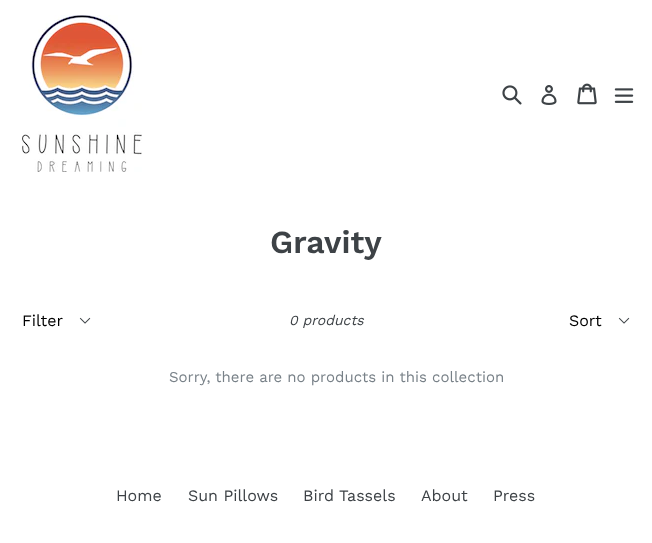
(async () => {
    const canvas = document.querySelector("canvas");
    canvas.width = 652;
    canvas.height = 543;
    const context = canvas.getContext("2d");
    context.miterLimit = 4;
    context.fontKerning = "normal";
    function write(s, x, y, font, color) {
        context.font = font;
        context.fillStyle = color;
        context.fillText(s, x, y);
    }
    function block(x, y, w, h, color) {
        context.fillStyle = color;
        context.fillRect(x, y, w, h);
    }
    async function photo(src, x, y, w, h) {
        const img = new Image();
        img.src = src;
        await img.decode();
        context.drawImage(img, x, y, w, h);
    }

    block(0, 0, 652, 543, "rgb(255, 255, 255)");
    await photo("media/1.png", 22, 15, 120, 157);
    await photo("media/2.png", 502, 85, 20, 20);
    await photo("media/3.png", 541, 85, 16, 20);
    await photo("media/4.png", 577, 83, 20, 22);
    await photo("media/5.png", 614, 88, 20, 15);
    write("Gravity", 270, 253, "600 32px Work Sans", "rgb(61, 66, 70)");
    await photo("media/6.png", 79, 317, 12, 7);
    write("Filter", 22, 326, "16px Work Sans", "rgb(0, 0, 0)");
    write("0 products", 289, 325, "italic 14px Work Sans", "rgb(61, 66, 70)");
    await photo("media/6.png", 618, 317, 12, 7);
    write("Sort", 569, 326, "16px Work Sans", "rgb(0, 0, 0)");
    write("Sorry, there are no products in this collection", 169, 382, "15px Work Sans", "rgb(120, 129, 136)");
    write("Home", 116, 501, "16px Work Sans", "rgb(61, 66, 70)");
    write("Sun Pillows", 188, 501, "16px Work Sans", "rgb(61, 66, 70)");
    write("Bird Tassels", 303, 501, "16px Work Sans", "rgb(61, 66, 70)");
    write("About", 421, 501, "16px Work Sans", "rgb(61, 66, 70)");
    write("Press", 493, 501, "16px Work Sans", "rgb(61, 66, 70)");
})();
